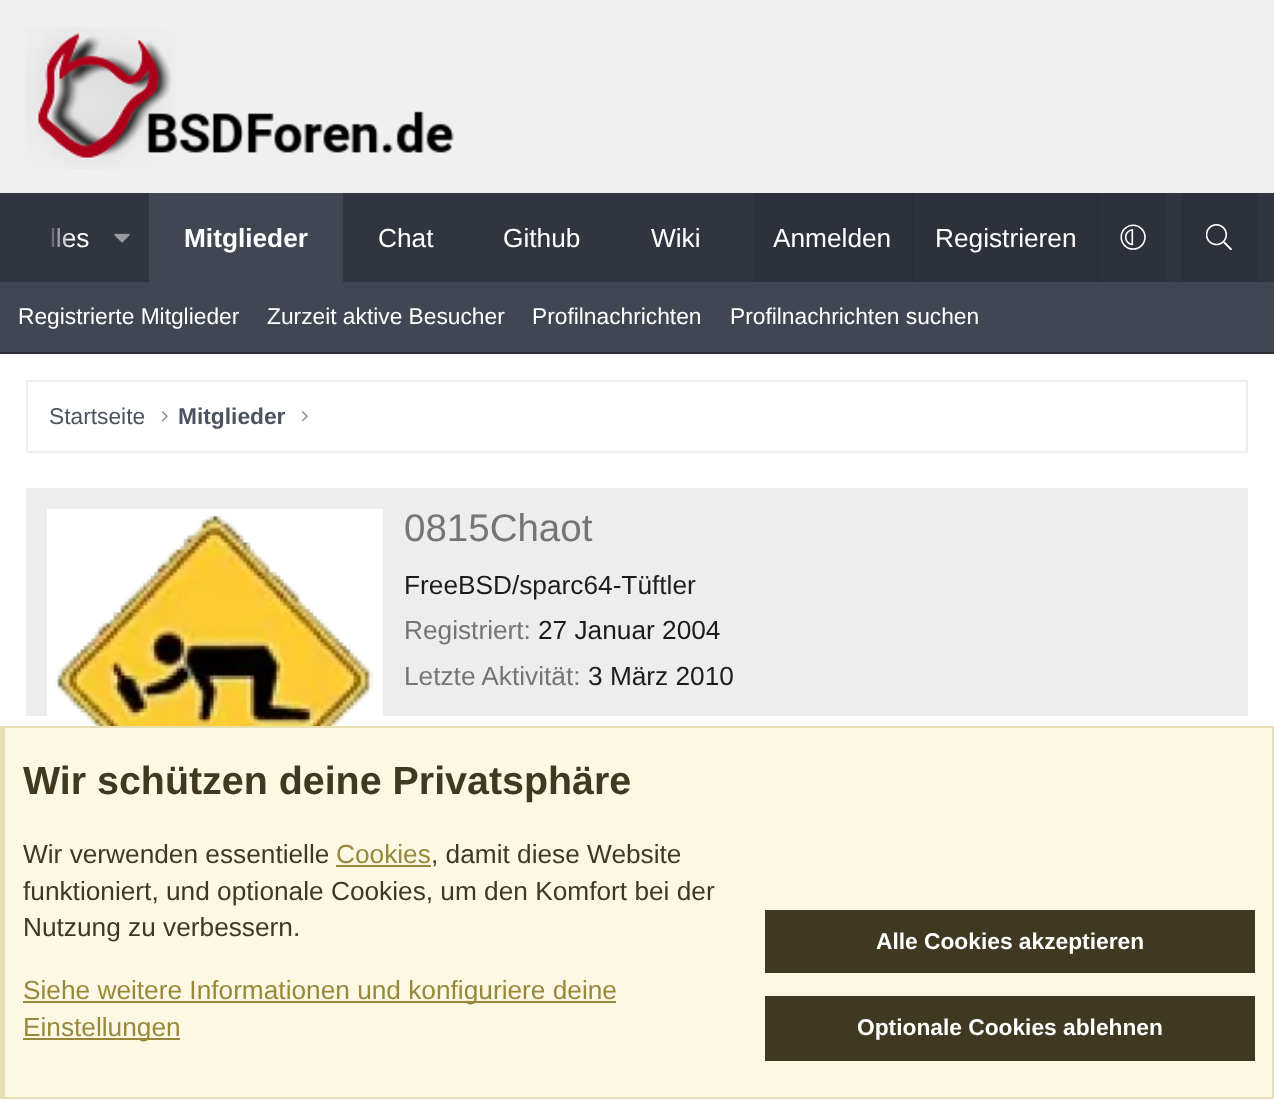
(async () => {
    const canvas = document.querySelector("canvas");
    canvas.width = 1274;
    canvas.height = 1099;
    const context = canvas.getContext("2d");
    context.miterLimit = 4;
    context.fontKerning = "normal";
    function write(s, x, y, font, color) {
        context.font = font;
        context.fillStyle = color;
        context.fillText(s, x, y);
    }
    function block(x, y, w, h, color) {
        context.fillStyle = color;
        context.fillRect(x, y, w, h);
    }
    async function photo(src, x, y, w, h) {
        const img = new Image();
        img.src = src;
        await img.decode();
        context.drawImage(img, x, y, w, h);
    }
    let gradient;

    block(0, 0, 1274, 1099, "rgb(240, 240, 240)");
    await photo("media/1.png", 25, 27, 429, 142);
    block(46, 193, 1228, 89, "rgb(48, 53, 64)");
    write("lles", 50, 247, "26.25px Liberation Sans", "rgb(255, 255, 255)");
    gradient = context.createLinearGradient(0, 237, 70, 237);
    gradient.addColorStop(0.66, "rgb(48, 53, 64)");
    gradient.addColorStop(1, "rgba(48, 53, 64, 0)");
    context.fillStyle = gradient;
    context.fillRect(0, 193, 69, 89);
    await photo("media/2.png", 114, 233, 16, 10);
    block(149, 193, 194, 89, "rgb(65, 70, 83)");
    write("Mitglieder", 184, 247, "bold 26.25px Liberation Sans", "rgb(255, 255, 255)");
    write("Chat", 378, 247, "26.25px Liberation Sans", "rgb(255, 255, 255)");
    write("Github", 503, 247, "26.25px Liberation Sans", "rgb(255, 255, 255)");
    write("Wiki", 651, 247, "26.25px Liberation Sans", "rgb(255, 255, 255)");
    block(753, 193, 414, 89, "rgb(45, 49, 59)");
    write("Anmelden", 773, 247, "26.25px Liberation Sans", "rgb(255, 255, 255)");
    block(912, 193, 2, 89, "rgb(42, 46, 54)");
    write("Registrieren", 935, 247, "26.25px Liberation Sans", "rgb(255, 255, 255)");
    block(1097, 193, 2, 89, "rgb(42, 46, 54)");
    await photo("media/3.png", 1120, 224, 26, 26);
    block(1181, 193, 76, 89, "rgb(45, 49, 59)");
    await photo("media/4.png", 1206, 224, 26, 26);
    block(0, 282, 1274, 70, "rgb(65, 70, 83)");
    block(0, 352, 1274, 2, "rgb(43, 46, 54)");
    write("Registrierte Mitglieder", 18, 324, "22.75px Liberation Sans", "rgb(255, 255, 255)");
    write("Zurzeit aktive Besucher", 267, 324, "22.75px Liberation Sans", "rgb(255, 255, 255)");
    write("Profilnachrichten", 532, 324, "22.75px Liberation Sans", "rgb(255, 255, 255)");
    write("Profilnachrichten suchen", 730, 324, "22.75px Liberation Sans", "rgb(255, 255, 255)");
    block(0, 354, 1274, 372, "rgb(255, 255, 255)");
    context.strokeStyle = "rgb(237, 237, 237)";
    context.lineWidth = 2;
    context.strokeRect(27, 381, 1220, 71);
    write("Startseite", 49, 424, "22.75px Liberation Sans", "rgb(76, 83, 97)");
    await photo("media/5.png", 161, 411, 7, 11);
    write("Mitglieder", 178, 424, "bold 22.75px Liberation Sans", "rgb(76, 83, 97)");
    await photo("media/5.png", 301, 411, 7, 11);
    block(26, 488, 1222, 228, "rgb(237, 237, 237)");
    block(47, 509, 336, 207, "rgb(255, 255, 255)");
    await photo("media/6.png", 54, 513, 319, 213);
    write("0815Chaot", 404, 541, "38.5px Liberation Sans", "rgb(117, 117, 117)");
    write("FreeBSD/sparc64-Tüftler", 404, 594, "26.25px Liberation Sans", "rgb(28, 28, 28)");
    write("Registriert:", 404, 639, "26.25px Liberation Sans", "rgb(117, 117, 117)");
    write("27 Januar 2004", 538, 639, "26.25px Liberation Sans", "rgb(28, 28, 28)");
    write("Letzte Aktivität:", 404, 685, "26.25px Liberation Sans", "rgb(117, 117, 117)");
    write("3 März 2010", 588, 685, "26.25px Liberation Sans", "rgb(28, 28, 28)");
    block(5, 728, 1267, 369, "rgb(252, 248, 227)");
    block(0, 726, 1274, 2, "rgb(231, 222, 177)");
    block(1272, 726, 2, 373, "rgb(231, 222, 177)");
    block(0, 1097, 1274, 2, "rgb(231, 222, 177)");
    block(0, 726, 5, 373, "rgb(231, 222, 177)");
    write("Wir schützen deine Privatsphäre", 23, 794, "bold 39.4px Liberation Sans", "rgb(63, 57, 34)");
    write("Wir verwenden essentielle", 23, 863, "26.25px Liberation Sans", "rgb(63, 57, 34)");
    write("Cookies", 336, 863, "26.25px Liberation Sans", "rgb(153, 136, 59)");
    block(336, 865, 95, 2, "rgb(153, 136, 59)");
    write(", damit diese Website", 431, 863, "26.25px Liberation Sans", "rgb(63, 57, 34)");
    write("funktioniert, und optionale Cookies, um den Komfort bei der", 23, 900, "26.25px Liberation Sans", "rgb(63, 57, 34)");
    write("Nutzung zu verbessern.", 23, 936, "26.25px Liberation Sans", "rgb(63, 57, 34)");
    block(23, 1001, 593, 2, "rgb(153, 136, 59)");
    write("Siehe weitere Informationen und konfiguriere deine", 23, 999, "26.25px Liberation Sans", "rgb(153, 136, 59)");
    block(23, 1038, 157, 2, "rgb(153, 136, 59)");
    write("Einstellungen", 23, 1036, "26.25px Liberation Sans", "rgb(153, 136, 59)");
    block(765, 910, 490, 63, "rgb(63, 57, 34)");
    write("Alle Cookies akzeptieren", 876, 949, "bold 22.75px Liberation Sans", "rgb(255, 255, 255)");
    block(765, 996, 490, 65, "rgb(63, 57, 34)");
    write("Optionale Cookies ablehnen", 857, 1035, "bold 22.75px Liberation Sans", "rgb(255, 255, 255)");
})();
